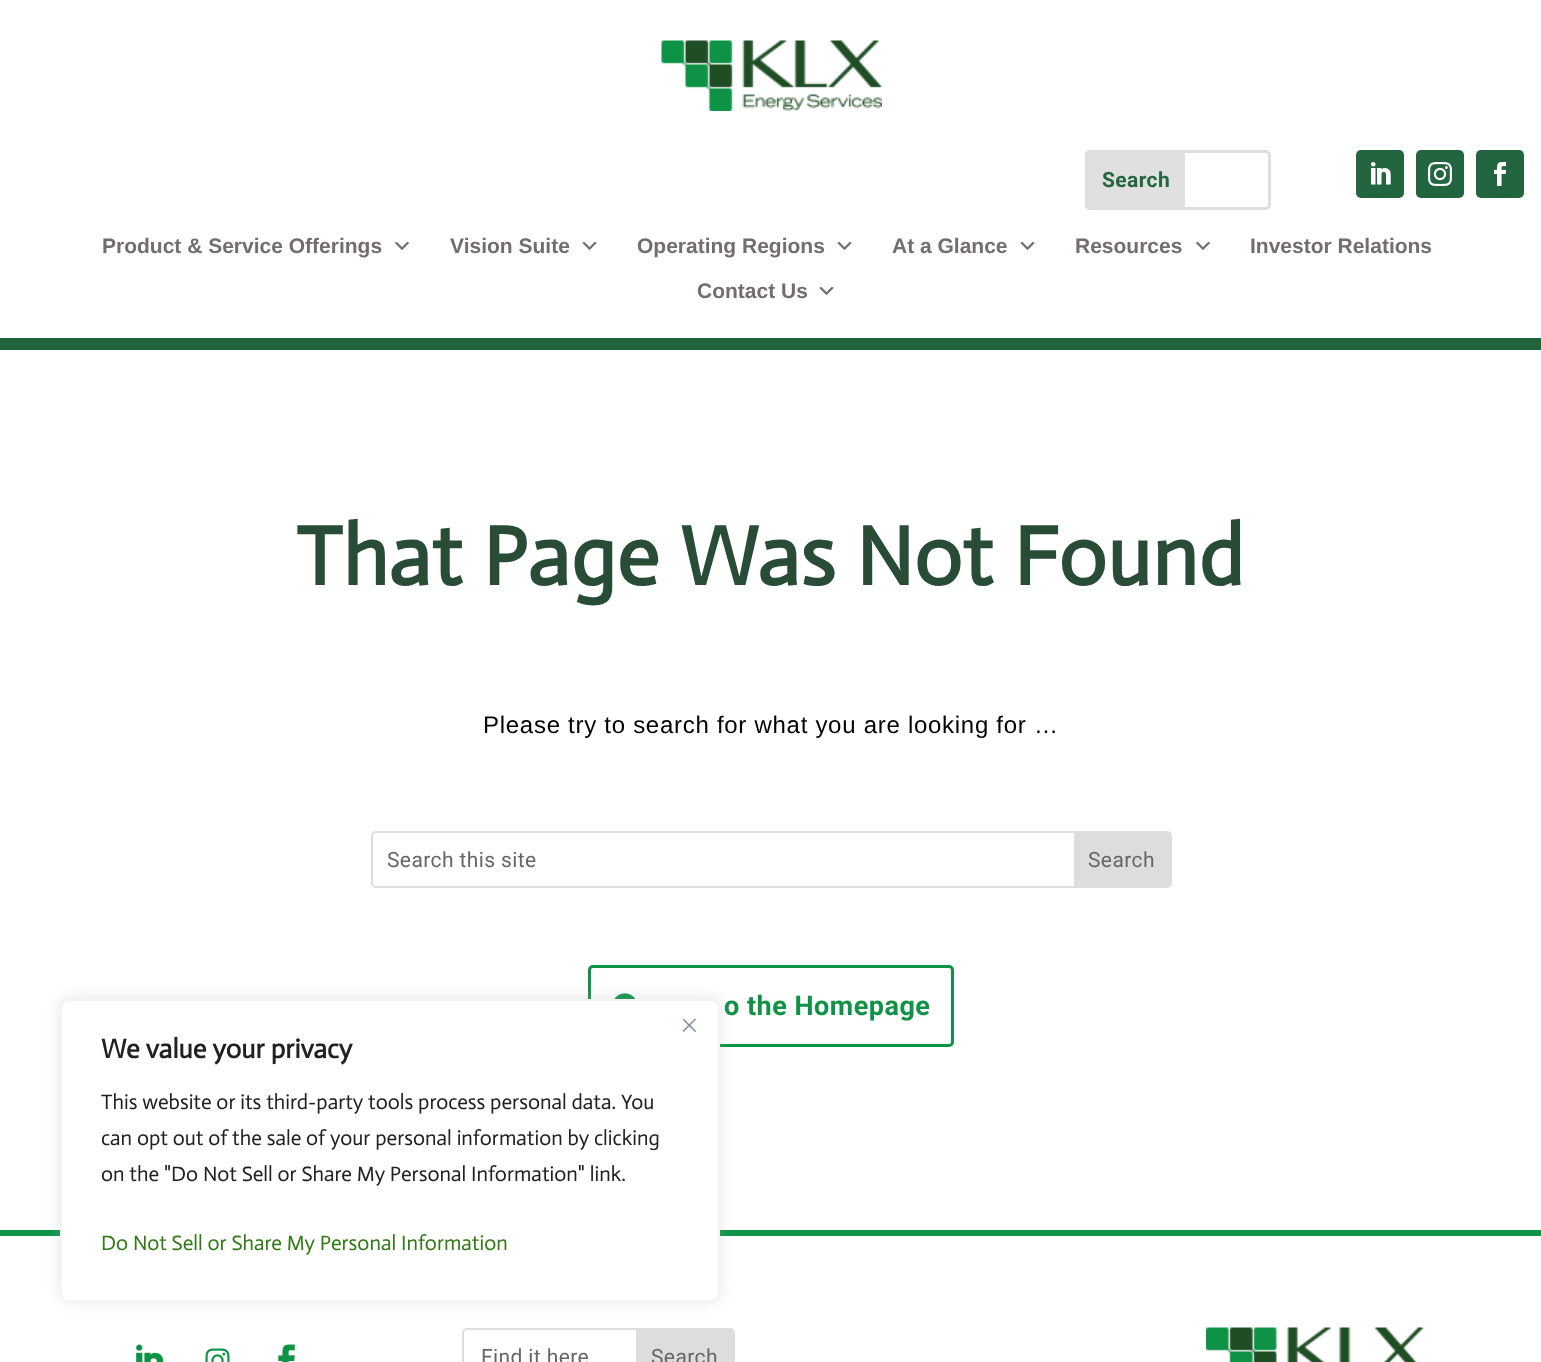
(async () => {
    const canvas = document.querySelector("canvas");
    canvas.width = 1541;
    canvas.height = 1362;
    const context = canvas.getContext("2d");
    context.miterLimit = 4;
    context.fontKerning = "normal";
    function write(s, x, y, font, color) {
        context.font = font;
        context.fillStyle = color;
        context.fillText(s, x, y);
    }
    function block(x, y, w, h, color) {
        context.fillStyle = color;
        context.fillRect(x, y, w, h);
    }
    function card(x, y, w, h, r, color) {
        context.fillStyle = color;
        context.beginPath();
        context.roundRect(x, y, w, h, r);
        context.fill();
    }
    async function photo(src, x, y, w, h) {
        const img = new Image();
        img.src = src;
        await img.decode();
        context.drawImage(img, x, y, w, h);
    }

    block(0, 0, 1541, 1362, "rgb(255, 255, 255)");
    await photo("media/1.png", 661, 40, 221, 71);
    context.beginPath();
    context.roundRect(1086.5, 151.5, 183, 57, 3.5);
    context.strokeStyle = "rgb(221, 221, 221)";
    context.lineWidth = 3;
    context.stroke();
    context.fillStyle = "rgb(224, 224, 224)";
    context.beginPath();
    context.roundRect(1088, 153, 97, 54, [1.5, 0, 0, 1.5]);
    context.fill();
    context.letterSpacing = "0.4px";
    write("Search", 1102, 187, "bold 21px Roboto", "rgb(34, 101, 62)");
    card(1356, 150, 48, 48, 5, "rgb(34, 101, 62)");
    await photo("media/2.png", 1371, 162, 20, 23);
    card(1416, 150, 48, 48, 5, "rgb(34, 101, 62)");
    await photo("media/3.png", 1428, 162, 24, 24);
    card(1476, 150, 48, 48, 5, "rgb(34, 101, 62)");
    await photo("media/4.png", 1494, 162, 13, 24);
    block(0, 338, 1541, 12, "rgb(34, 101, 62)");
    context.letterSpacing = "0px";
    write("Product & Service Offerings", 102, 253, "bold 21px Liberation Sans", "rgb(115, 109, 109)");
    await photo("media/5.png", 394, 241, 16, 9);
    write("Vision Suite", 450, 253, "bold 21px Liberation Sans", "rgb(115, 109, 109)");
    await photo("media/6.png", 582, 241, 15, 10);
    write("Operating Regions", 637, 253, "bold 21px Liberation Sans", "rgb(115, 109, 109)");
    await photo("media/6.png", 837, 241, 15, 10);
    write("At a Glance", 892, 253, "bold 21px Liberation Sans", "rgb(115, 109, 109)");
    await photo("media/6.png", 1020, 241, 15, 10);
    write("Resources", 1075, 253, "bold 21px Liberation Sans", "rgb(115, 109, 109)");
    await photo("media/5.png", 1195, 241, 16, 9);
    write("Investor Relations", 1250, 253, "bold 21px Liberation Sans", "rgb(115, 109, 109)");
    write("Contact Us", 697, 298, "bold 21px Liberation Sans", "rgb(115, 109, 109)");
    await photo("media/6.png", 819, 286, 15, 10);
    context.letterSpacing = "0.6px";
    write("That Page Was Not Found", 296, 585, "bold 84px Actor", "rgb(41, 76, 55)");
    context.letterSpacing = "0.72px";
    write("Please try to search for what you are looking for …", 483, 733, "24px Liberation Sans", "rgb(0, 0, 0)");
    context.beginPath();
    context.roundRect(372, 832, 799, 55, 4);
    context.lineWidth = 2;
    context.stroke();
    context.letterSpacing = "0.4px";
    write("Search this site", 387, 867, "21px Roboto", "rgb(102, 102, 102)");
    context.fillStyle = "rgb(221, 221, 221)";
    context.beginPath();
    context.roundRect(1074, 833, 96, 54, [0, 3, 3, 0]);
    context.fill();
    write("Search", 1088, 867, "21px Roboto", "rgb(102, 102, 102)");
    context.beginPath();
    context.roundRect(589.5, 966.5, 363, 79, 3.5);
    context.strokeStyle = "rgb(14, 147, 70)";
    context.lineWidth = 3;
    context.stroke();
    await photo("media/7.png", 614, 993, 22, 6);
    context.letterSpacing = "0.5px";
    write("o the Homepage", 724, 1015, "bold 27px Roboto", "rgb(14, 147, 70)");
    block(0, 1230, 1541, 6, "rgb(14, 147, 70)");
    await photo("media/8.png", 136, 1344, 28, 18);
    await photo("media/9.png", 205, 1348, 25, 14);
    await photo("media/10.png", 278, 1344, 17, 18);
    context.beginPath();
    context.roundRect(463, 1329, 271, 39, 4);
    context.strokeStyle = "rgb(221, 221, 221)";
    context.lineWidth = 2;
    context.stroke();
    context.letterSpacing = "0.4px";
    write("Find it here", 481, 1364, "21px Roboto", "rgb(102, 102, 102)");
    context.fillStyle = "rgb(221, 221, 221)";
    context.beginPath();
    context.moveTo(636, 1329);
    context.lineTo(731, 1329);
    context.bezierCurveTo(732.5, 1329, 734, 1330.5, 734, 1332);
    context.lineTo(734, 1362);
    context.bezierCurveTo(734, 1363.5, 732.5, 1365, 731, 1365);
    context.lineTo(636, 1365);
    context.closePath();
    context.fill();
    write("Search", 651, 1364, "21px Roboto", "rgb(102, 102, 102)");
    await photo("media/11.png", 1206, 1327, 218, 35);
    context.fillStyle = "rgba(172, 171, 171, 0.3)";
    context.filter = "blur(7.5px)";
    context.beginPath();
    context.roundRect(60, 998, 660, 303, 9);
    context.fill();
    context.filter = "none";
    context.fillStyle = "rgb(255, 255, 255)";
    context.beginPath();
    context.roundRect(61, 1000, 658, 301, 8);
    context.fill();
    context.strokeStyle = "rgb(244, 244, 244)";
    context.stroke();
    await photo("media/12.png", 683, 1019, 13, 13);
    context.letterSpacing = "0px";
    write("We value your privacy", 101, 1058, "bold 27px Actor", "rgb(33, 33, 33)");
    write("This website or its third-party tools process personal data. You", 101, 1109, "21px Actor", "rgb(33, 33, 33)");
    write("can opt out of the sale of your personal information by clicking", 101, 1145, "21px Actor", "rgb(33, 33, 33)");
    write("on the \"Do Not Sell or Share My Personal Information\" link.", 101, 1181, "21px Actor", "rgb(33, 33, 33)");
    write("Do Not Sell or Share My Personal Information", 101, 1250, "21px Actor", "rgb(49, 121, 21)");
})();
